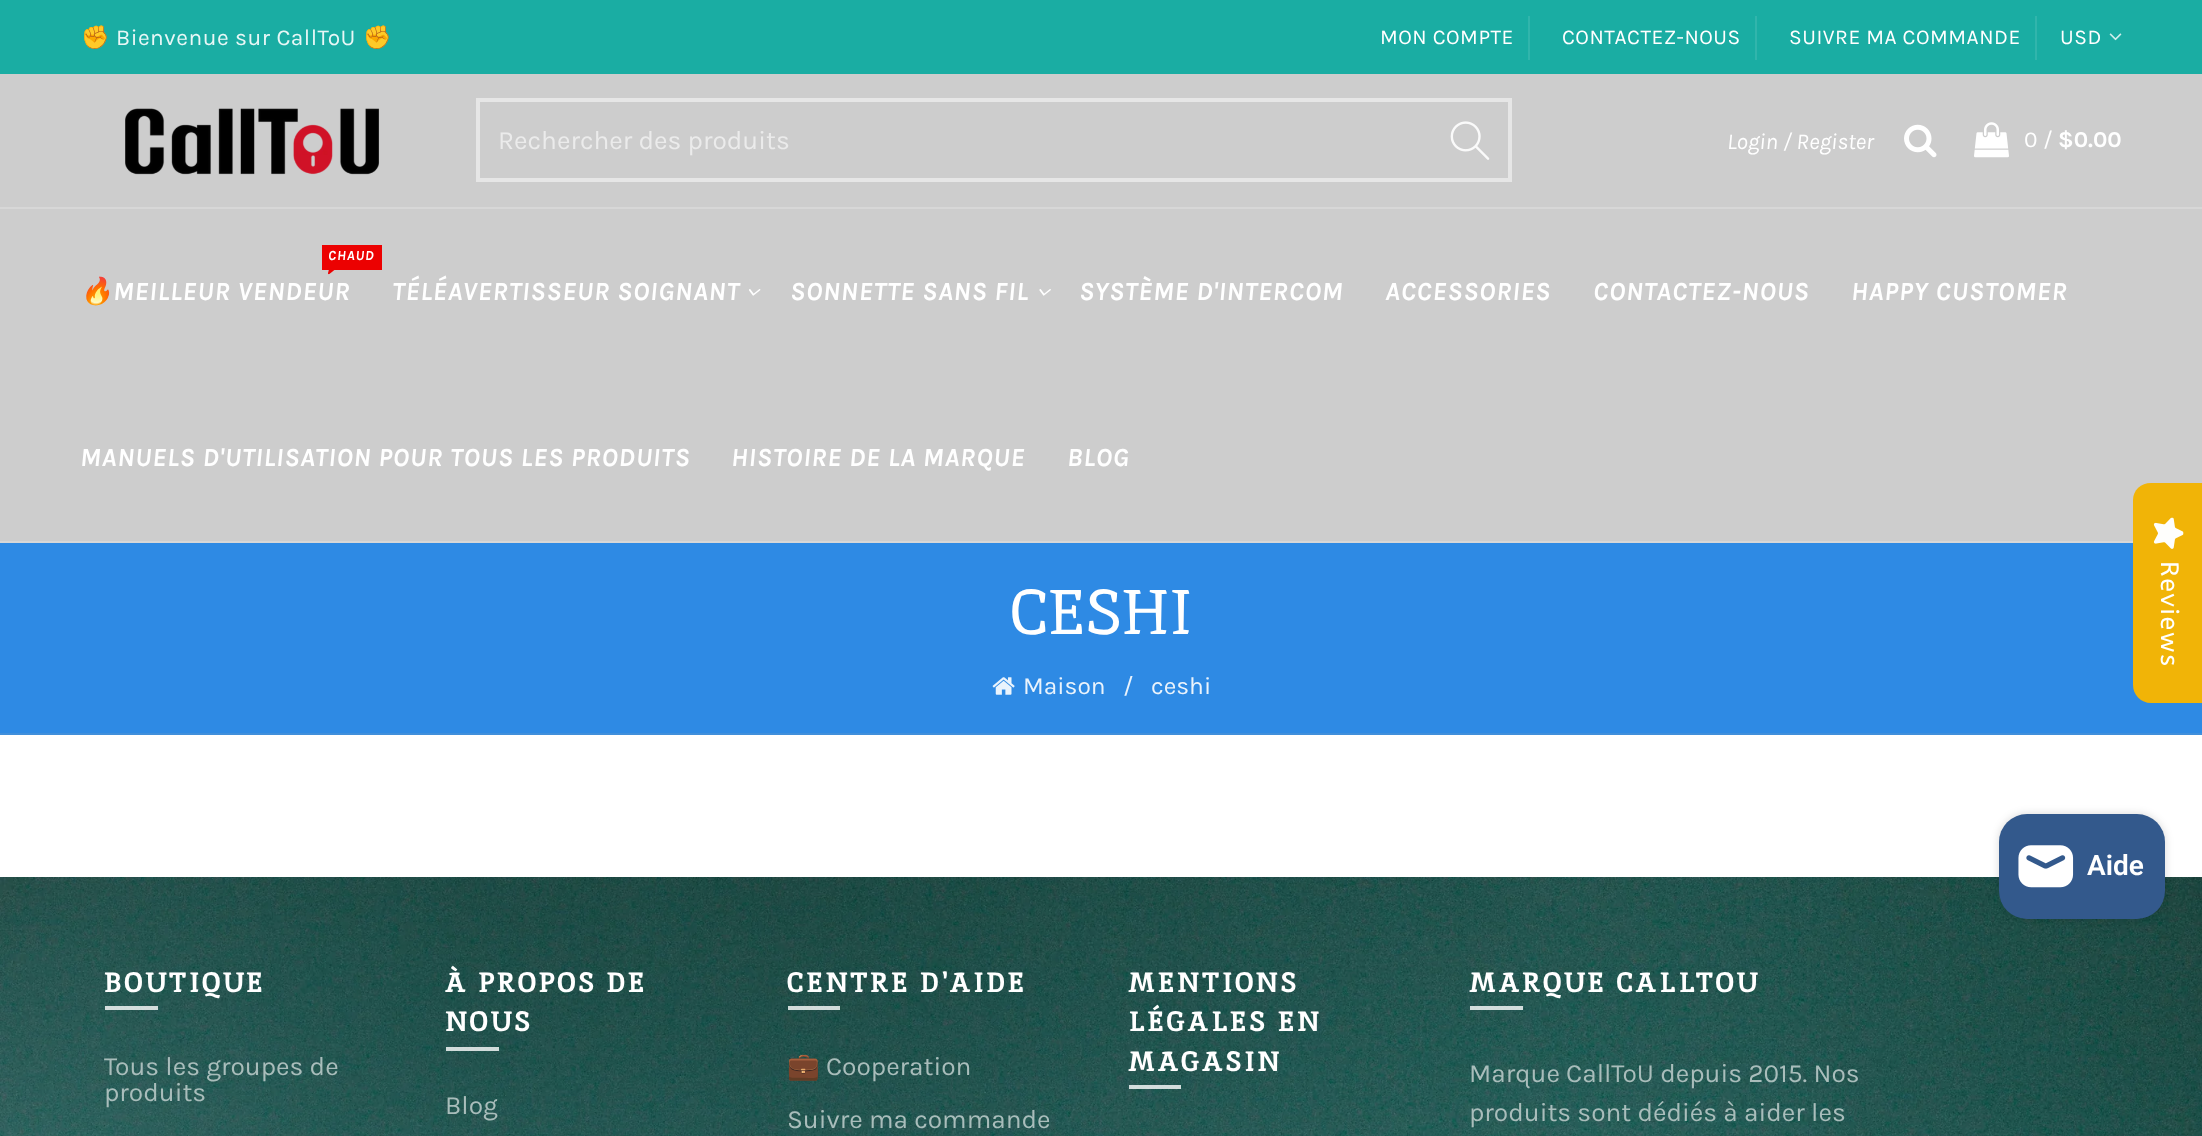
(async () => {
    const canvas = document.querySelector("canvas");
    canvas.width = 2202;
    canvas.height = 1136;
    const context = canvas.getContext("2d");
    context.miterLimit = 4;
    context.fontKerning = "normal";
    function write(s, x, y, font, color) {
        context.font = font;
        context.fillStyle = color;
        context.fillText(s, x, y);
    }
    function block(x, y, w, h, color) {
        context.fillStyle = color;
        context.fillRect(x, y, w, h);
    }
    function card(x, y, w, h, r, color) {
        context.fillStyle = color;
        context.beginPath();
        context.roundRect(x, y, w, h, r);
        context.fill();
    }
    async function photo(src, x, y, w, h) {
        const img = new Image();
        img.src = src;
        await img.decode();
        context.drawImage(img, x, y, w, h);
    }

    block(0, 0, 2202, 1136, "rgb(205, 205, 205)");
    block(0, 0, 2202, 74, "rgb(26, 173, 163)");
    context.letterSpacing = "0.5px";
    write("✊", 81, 45, "22.75px Noto Color Emoji", "rgb(232, 247, 246)");
    write("Bienvenue sur CallToU", 116, 45, "22.75px Karla", "rgb(232, 247, 246)");
    write("✊", 363, 45, "22.75px Noto Color Emoji", "rgb(232, 247, 246)");
    write("MON COMPTE", 1380, 44, "21px Karla", "rgb(255, 255, 255)");
    block(1528, 16, 2, 44, "rgb(49, 181, 172)");
    write("CONTACTEZ-NOUS", 1562, 44, "21px Karla", "rgb(255, 255, 255)");
    block(1755, 16, 2, 44, "rgb(49, 181, 172)");
    write("SUIVRE MA COMMANDE", 1789, 44, "21px Karla", "rgb(255, 255, 255)");
    block(2035, 16, 2, 44, "rgb(49, 181, 172)");
    write("USD", 2060, 44, "21px Karla", "rgb(255, 255, 255)");
    await photo("media/1.png", 2109, 33, 13, 8);
    await photo("media/2.png", 125, 108, 255, 67);
    context.strokeStyle = "rgb(230, 230, 230)";
    context.lineWidth = 4;
    context.strokeRect(478, 100, 1032, 80);
    context.letterSpacing = "0px";
    write("Rechercher des produits", 498, 149, "26.25px Karla", "rgb(235, 235, 235)");
    await photo("media/3.png", 1450, 121, 40, 39);
    write("Login / Register", 1727, 149, "italic 22.75px Karla", "rgb(255, 255, 255)");
    await photo("media/4.png", 1904, 124, 33, 34);
    await photo("media/5.png", 1974, 122, 35, 36);
    write("0 /", 2024, 147, "22.75px Karla", "rgb(255, 255, 255)");
    write("$0.00", 2058, 147, "bold 22.75px Karla", "rgb(255, 255, 255)");
    block(0, 207, 2202, 2, "rgb(215, 215, 215)");
    block(0, 541, 2133, 2, "rgb(215, 215, 215)");
    block(322, 245, 60, 25, "rgb(236, 1, 1)");
    context.letterSpacing = "0.9px";
    write("CHAUD", 328, 260, "italic bold 14px Karla", "rgb(255, 255, 255)");
    await photo("media/6.png", 328, 270, 7, 5);
    write("🔥", 80, 300, "italic bold 26.25px Noto Color Emoji", "rgb(255, 255, 255)");
    write("MEILLEUR VENDEUR", 113, 300, "italic bold 26.25px Karla", "rgb(255, 255, 255)");
    write("TÉLÉAVERTISSEUR SOIGNANT", 392, 300, "italic bold 26.25px Karla", "rgb(255, 255, 255)");
    await photo("media/7.png", 749, 289, 12, 7);
    write("SONNETTE SANS FIL", 790, 300, "italic bold 26.25px Karla", "rgb(255, 255, 255)");
    await photo("media/8.png", 1039, 289, 12, 7);
    write("SYSTÈME D'INTERCOM", 1079, 300, "italic bold 26.25px Karla", "rgb(255, 255, 255)");
    write("ACCESSORIES", 1385, 300, "italic bold 26.25px Karla", "rgb(255, 255, 255)");
    write("CONTACTEZ-NOUS", 1593, 300, "italic bold 26.25px Karla", "rgb(255, 255, 255)");
    write("HAPPY CUSTOMER", 1851, 300, "italic bold 26.25px Karla", "rgb(255, 255, 255)");
    write("MANUELS D'UTILISATION POUR TOUS LES PRODUITS", 80, 466, "italic bold 26.25px Karla", "rgb(255, 255, 255)");
    write("HISTOIRE DE LA MARQUE", 731, 466, "italic bold 26.25px Karla", "rgb(255, 255, 255)");
    write("BLOG", 1067, 466, "italic bold 26.25px Karla", "rgb(255, 255, 255)");
    block(0, 735, 2202, 142, "rgb(255, 255, 255)");
    block(0, 543, 2202, 190, "rgb(46, 138, 228)");
    block(0, 733, 2202, 2, "rgb(64, 143, 219)");
    context.letterSpacing = "0px";
    write("CESHI", 1011, 634, "63px Inika", "rgb(255, 255, 255)");
    await photo("media/9.png", 992, 677, 23, 18);
    write("Maison", 1023, 694, "24.5px Karla", "rgb(234, 243, 252)");
    write("/", 1123, 694, "24.5px Karla", "rgb(234, 243, 252)");
    write("ceshi", 1151, 694, "24.5px Karla", "rgb(234, 243, 252)");
    await photo("media/10.png", 0, 877, 2202, 259);
    context.letterSpacing = "2.6px";
    write("BOUTIQUE", 104, 992, "bold 28px Inika", "rgb(255, 255, 255)");
    block(105, 1006, 53, 4, "rgba(255, 255, 255, 0.8)");
    context.letterSpacing = "0px";
    write("Tous les groupes de", 104, 1075, "26.25px Karla", "rgb(169, 189, 187)");
    write("produits", 104, 1101, "26.25px Karla", "rgb(169, 189, 187)");
    context.letterSpacing = "2.6px";
    write("À PROPOS DE", 445, 992, "bold 28px Inika", "rgb(255, 255, 255)");
    write("NOUS", 445, 1031, "bold 28px Inika", "rgb(255, 255, 255)");
    block(446, 1047, 53, 4, "rgba(255, 255, 255, 0.8)");
    context.letterSpacing = "0px";
    write("Blog", 445, 1114, "26.25px Karla", "rgb(169, 189, 187)");
    context.letterSpacing = "2.6px";
    write("CENTRE D'AIDE", 787, 992, "bold 28px Inika", "rgb(255, 255, 255)");
    block(788, 1006, 52, 4, "rgba(255, 255, 255, 0.8)");
    context.letterSpacing = "0px";
    write("💼", 787, 1075, "26.25px Noto Color Emoji", "rgb(169, 189, 187)");
    write("Cooperation", 826, 1075, "26.25px Karla", "rgb(169, 189, 187)");
    write("Suivre ma commande", 787, 1128, "26.25px Karla", "rgb(169, 189, 187)");
    context.letterSpacing = "2.6px";
    write("MENTIONS", 1128, 992, "bold 28px Inika", "rgb(255, 255, 255)");
    write("LÉGALES EN", 1128, 1031, "bold 28px Inika", "rgb(255, 255, 255)");
    write("MAGASIN", 1128, 1071, "bold 28px Inika", "rgb(255, 255, 255)");
    block(1129, 1085, 52, 4, "rgba(255, 255, 255, 0.8)");
    write("MARQUE CALLTOU", 1469, 992, "bold 28px Inika", "rgb(255, 255, 255)");
    block(1470, 1006, 53, 4, "rgba(255, 255, 255, 0.8)");
    context.letterSpacing = "0px";
    write("Marque CallToU depuis 2015. Nos", 1469, 1082, "26.25px Karla", "rgb(169, 189, 187)");
    write("produits sont dédiés à aider les", 1469, 1121, "26.25px Karla", "rgb(169, 189, 187)");
    context.fillStyle = "rgb(241, 180, 7)";
    context.beginPath();
    context.moveTo(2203, 483);
    context.lineTo(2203, 703);
    context.lineTo(2151, 703);
    context.bezierCurveTo(2141, 703, 2133, 695, 2133, 685);
    context.lineTo(2133, 500);
    context.bezierCurveTo(2133, 490, 2141, 483, 2151, 483);
    context.closePath();
    context.fill();
    await photo("media/11.png", 2153, 517, 31, 32);
    context.letterSpacing = "1.75px";
    context.font = "25px ABeeZee";
    context.fillStyle = "rgb(255, 255, 255)";
    context.save();
    context.translate(2161, 561);
    context.rotate(90 * Math.PI / 180);
    context.fillText("Reviews", 0, 0);
    context.restore();
    context.fillStyle = "rgba(0, 0, 0, 0.15)";
    context.filter = "blur(4.5px)";
    context.beginPath();
    context.roundRect(1999, 814, 166, 105, 28);
    context.fill();
    context.filter = "none";
    card(1999, 814, 166, 105, 28, "rgb(51, 89, 140)");
    await photo("media/12.png", 2018, 845, 56, 43);
    context.letterSpacing = "0px";
    write("Aide", 2087, 875, "600 28px Roboto", "rgb(255, 255, 255)");
})();
